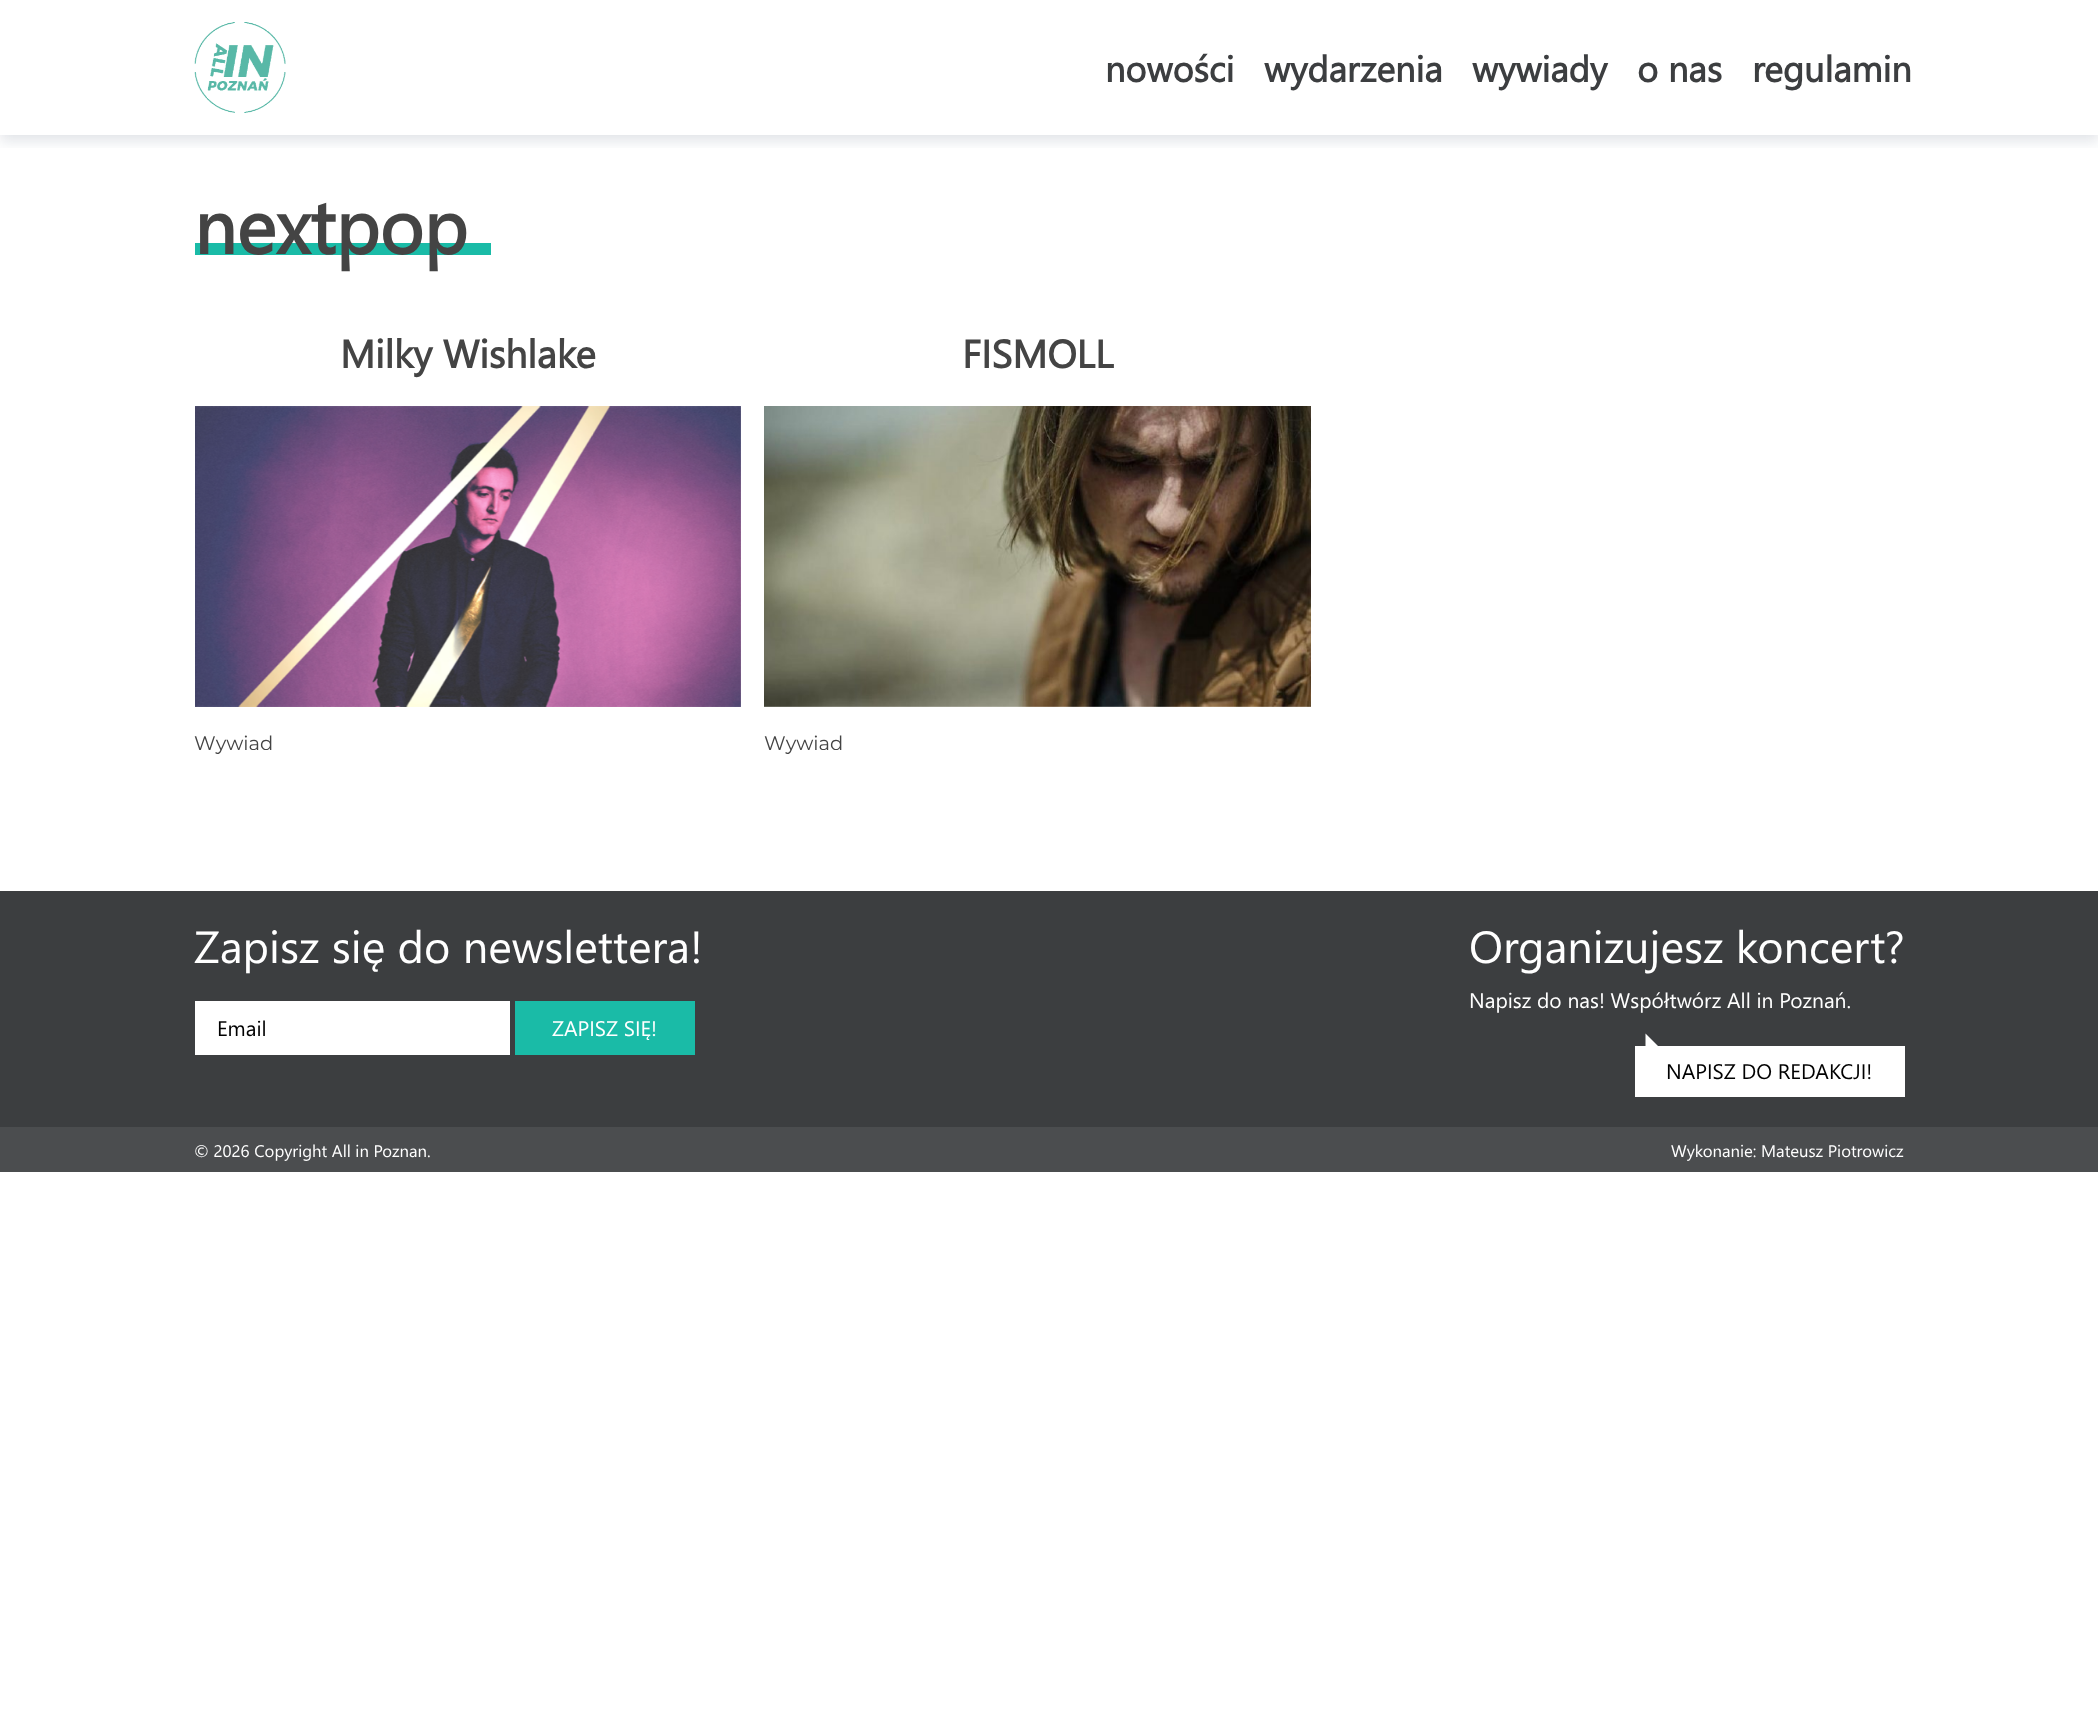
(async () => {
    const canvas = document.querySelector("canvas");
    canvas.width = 2098;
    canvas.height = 1714;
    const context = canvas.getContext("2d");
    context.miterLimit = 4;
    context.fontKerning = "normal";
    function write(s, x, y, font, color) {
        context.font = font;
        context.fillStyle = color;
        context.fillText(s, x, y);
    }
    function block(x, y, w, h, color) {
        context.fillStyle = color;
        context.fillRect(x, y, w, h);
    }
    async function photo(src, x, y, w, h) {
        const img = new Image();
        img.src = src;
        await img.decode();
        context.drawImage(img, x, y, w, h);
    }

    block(0, 0, 2098, 1714, "rgb(255, 255, 255)");
    context.save();
    context.beginPath();
    context.rect(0, 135, 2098, 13);
    context.clip();
    context.fillStyle = "rgba(10, 31, 68, 0.12)";
    context.filter = "blur(7px)";
    context.beginPath();
    context.rect(0, 6, 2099, 135);
    context.fill();
    context.filter = "none";
    context.restore();
    await photo("media/1.png", 194, 22, 92, 91);
    write("nowości", 1105, 82, "bold 36px Segoe UI", "rgb(60, 62, 64)");
    write("wydarzenia", 1264, 82, "bold 36px Segoe UI", "rgb(60, 62, 64)");
    write("wywiady", 1472, 82, "bold 36px Segoe UI", "rgb(60, 62, 64)");
    write("o nas", 1637, 82, "bold 36px Segoe UI", "rgb(60, 62, 64)");
    write("regulamin", 1752, 82, "bold 36px Segoe UI", "rgb(60, 62, 64)");
    block(195, 243, 296, 12, "rgb(26, 187, 167)");
    write("nextpop", 194, 254, "bold 75px Segoe UI", "rgb(68, 68, 68)");
    write("Milky Wishlake", 340, 368, "bold 39px Segoe UI", "rgb(68, 68, 68)");
    await photo("media/2.png", 195, 406, 546, 301);
    write("Wywiad", 194, 750, "100 19.5px Montserrat", "rgb(68, 68, 68)");
    write("FISMOLL", 962, 368, "bold 39px Segoe UI", "rgb(68, 68, 68)");
    await photo("media/3.png", 764, 406, 547, 301);
    write("Wywiad", 764, 750, "100 19.5px Montserrat", "rgb(68, 68, 68)");
    block(0, 891, 2098, 236, "rgb(60, 62, 64)");
    write("Zapisz się do newslettera!", 194, 963, "45px Segoe UI", "rgb(255, 255, 255)");
    block(195, 1001, 315, 54, "rgb(255, 255, 255)");
    write("Email", 217, 1036, "21px Segoe UI", "rgb(0, 0, 0)");
    block(515, 1001, 180, 54, "rgb(26, 187, 167)");
    write("ZAPISZ SIĘ!", 552, 1036, "21px Segoe UI", "rgb(255, 255, 255)");
    write("Organizujesz koncert?", 1469, 963, "45px Segoe UI", "rgb(255, 255, 255)");
    write("Napisz do nas! Współtwórz All in Poznań.", 1469, 1008, "21px Segoe UI", "rgb(255, 255, 255)");
    block(1635, 1046, 270, 51, "rgb(255, 255, 255)");
    context.beginPath();
    context.moveTo(1660.5, 1048.5);
    context.lineTo(1645.5, 1048.5);
    context.lineTo(1645.5, 1033.5);
    context.closePath();
    context.fill();
    write("NAPISZ DO REDAKCJI!", 1666, 1079, "21px Segoe UI", "rgb(0, 0, 0)");
    block(0, 1127, 2098, 45, "rgb(75, 77, 79)");
    write("© 2026 Copyright All in Poznan.", 194, 1157, "16.75px Segoe UI", "rgb(255, 255, 255)");
    write("Wykonanie: Mateusz Piotrowicz", 1671, 1157, "16.75px Segoe UI", "rgb(255, 255, 255)");
})();
